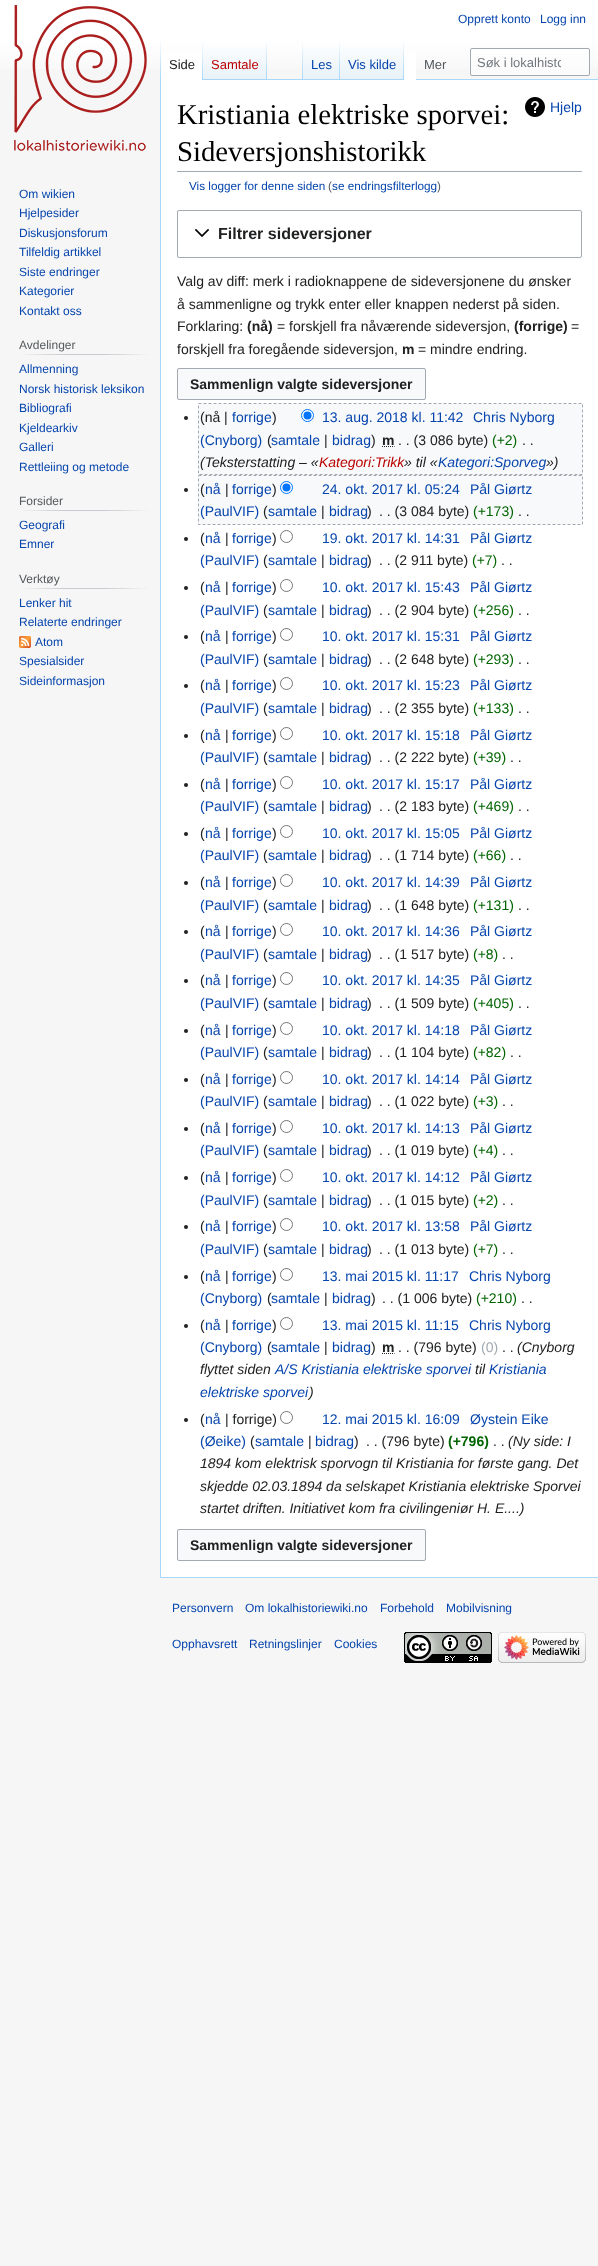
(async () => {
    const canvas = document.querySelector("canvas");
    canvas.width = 598;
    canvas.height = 2266;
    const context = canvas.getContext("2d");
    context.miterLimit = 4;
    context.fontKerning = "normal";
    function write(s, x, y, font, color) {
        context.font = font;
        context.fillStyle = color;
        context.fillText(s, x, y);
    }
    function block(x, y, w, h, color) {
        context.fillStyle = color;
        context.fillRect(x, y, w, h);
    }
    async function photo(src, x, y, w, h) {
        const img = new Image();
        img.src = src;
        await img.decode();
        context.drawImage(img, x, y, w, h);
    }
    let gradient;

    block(0, 0, 598, 2266, "rgb(246, 246, 246)");
    gradient = context.createLinearGradient(299, 0, 299, 80);
    gradient.addColorStop(0.5, "rgb(255, 255, 255)");
    gradient.addColorStop(1, "rgb(246, 246, 246)");
    context.fillStyle = gradient;
    context.fillRect(0, 0, 598, 69);
    write("Opprett konto", 458, 23, "12px Liberation Sans", "rgb(6, 69, 173)");
    write("Logg inn", 540, 23, "12px Liberation Sans", "rgb(6, 69, 173)");
    block(160, 1577, 438, 1, "rgb(167, 215, 249)");
    block(160, 79, 1, 1499, "rgb(167, 215, 249)");
    gradient = context.createLinearGradient(161, 40, 161, 80);
    gradient.addColorStop(0, "rgba(167, 215, 249, 0)");
    gradient.addColorStop(1, "rgb(167, 215, 249)");
    context.fillStyle = gradient;
    context.fillRect(160, 40, 1, 40);
    block(161, 51, 41, 29, "rgb(255, 255, 255)");
    gradient = context.createLinearGradient(203, 40, 203, 80);
    gradient.addColorStop(0, "rgb(255, 255, 255)");
    gradient.addColorStop(1, "rgb(167, 215, 249)");
    context.fillStyle = gradient;
    context.fillRect(202, 40, 1, 40);
    write("Side", 169, 69, "13px Liberation Sans", "rgb(32, 33, 34)");
    gradient = context.createLinearGradient(235, 80, 235, 40);
    gradient.addColorStop(0, "rgb(119, 193, 246)");
    gradient.addColorStop(0.03, "rgb(232, 242, 248)");
    gradient.addColorStop(1, "rgb(255, 255, 255)");
    context.fillStyle = gradient;
    context.fillRect(203, 46, 64, 34);
    gradient = context.createLinearGradient(267, 40, 267, 80);
    gradient.addColorStop(0, "rgba(167, 215, 249, 0)");
    gradient.addColorStop(1, "rgb(167, 215, 249)");
    context.fillStyle = gradient;
    context.fillRect(266, 40, 1, 40);
    write("Samtale", 211, 69, "13px Liberation Sans", "rgb(186, 0, 0)");
    block(267, 79, 331, 1, "rgb(167, 215, 249)");
    gradient = context.createLinearGradient(303, 40, 303, 80);
    gradient.addColorStop(0, "rgba(167, 215, 249, 0)");
    gradient.addColorStop(1, "rgb(167, 215, 249)");
    context.fillStyle = gradient;
    context.fillRect(302, 40, 1, 40);
    gradient = context.createLinearGradient(322, 80, 322, 40);
    gradient.addColorStop(0, "rgb(119, 193, 246)");
    gradient.addColorStop(0.03, "rgb(232, 242, 248)");
    gradient.addColorStop(1, "rgb(255, 255, 255)");
    context.fillStyle = gradient;
    context.fillRect(303, 46, 37, 33);
    gradient = context.createLinearGradient(340, 40, 340, 80);
    gradient.addColorStop(0, "rgba(167, 215, 249, 0)");
    gradient.addColorStop(1, "rgb(167, 215, 249)");
    context.fillStyle = gradient;
    context.fillRect(339, 40, 1, 40);
    write("Les", 311, 69, "13px Liberation Sans", "rgb(6, 69, 173)");
    gradient = context.createLinearGradient(372, 80, 372, 40);
    gradient.addColorStop(0, "rgb(119, 193, 246)");
    gradient.addColorStop(0.03, "rgb(232, 242, 248)");
    gradient.addColorStop(1, "rgb(255, 255, 255)");
    context.fillStyle = gradient;
    context.fillRect(340, 46, 64, 33);
    gradient = context.createLinearGradient(404, 40, 404, 80);
    gradient.addColorStop(0, "rgba(167, 215, 249, 0)");
    gradient.addColorStop(1, "rgb(167, 215, 249)");
    context.fillStyle = gradient;
    context.fillRect(403, 40, 1, 40);
    write("Vis kilde", 348, 69, "13px Liberation Sans", "rgb(6, 69, 173)");
    block(404, 51, 12, 29, "rgb(255, 255, 255)");
    write("Mer", 424, 69, "13px Liberation Sans", "rgb(84, 89, 93)");
    context.fillStyle = "rgba(255, 255, 255, 0.5)";
    context.beginPath();
    context.roundRect(470.5, 48.5, 119, 27, 1.5);
    context.fill();
    context.strokeStyle = "rgb(162, 169, 177)";
    context.stroke();
    context.save();
    context.beginPath();
    context.rect(477, 55, 84, 15);
    context.clip();
    write("Søk i lokalhisto", 477, 67, "13px Liberation Sans", "rgb(114, 119, 125)");
    context.restore();
    await photo("media/1.png", 14, 5, 133, 146);
    write("Om wikien", 19, 198, "12px Liberation Sans", "rgb(6, 69, 173)");
    write("Hjelpesider", 19, 217, "12px Liberation Sans", "rgb(6, 69, 173)");
    write("Diskusjonsforum", 19, 237, "12px Liberation Sans", "rgb(6, 69, 173)");
    write("Tilfeldig artikkel", 19, 256, "12px Liberation Sans", "rgb(6, 69, 173)");
    write("Siste endringer", 19, 276, "12px Liberation Sans", "rgb(6, 69, 173)");
    write("Kategorier", 19, 295, "12px Liberation Sans", "rgb(6, 69, 173)");
    write("Kontakt oss", 19, 315, "12px Liberation Sans", "rgb(6, 69, 173)");
    gradient = context.createLinearGradient(19, 355, 150, 355);
    gradient.addColorStop(0, "rgb(246, 246, 246)");
    gradient.addColorStop(0.33, "rgb(200, 204, 209)");
    gradient.addColorStop(0.66, "rgb(200, 204, 209)");
    gradient.addColorStop(1, "rgb(246, 246, 246)");
    context.fillStyle = gradient;
    context.fillRect(19, 354, 131, 1);
    write("Avdelinger", 19, 349, "12px Liberation Sans", "rgb(84, 89, 93)");
    write("Allmenning", 19, 373, "12px Liberation Sans", "rgb(6, 69, 173)");
    write("Norsk historisk leksikon", 19, 393, "12px Liberation Sans", "rgb(6, 69, 173)");
    write("Bibliografi", 19, 412, "12px Liberation Sans", "rgb(6, 69, 173)");
    write("Kjeldearkiv", 19, 432, "12px Liberation Sans", "rgb(6, 69, 173)");
    write("Galleri", 19, 451, "12px Liberation Sans", "rgb(6, 69, 173)");
    write("Rettleiing og metode", 19, 471, "12px Liberation Sans", "rgb(6, 69, 173)");
    gradient = context.createLinearGradient(19, 511, 150, 511);
    gradient.addColorStop(0, "rgb(246, 246, 246)");
    gradient.addColorStop(0.33, "rgb(200, 204, 209)");
    gradient.addColorStop(0.66, "rgb(200, 204, 209)");
    gradient.addColorStop(1, "rgb(246, 246, 246)");
    context.fillStyle = gradient;
    context.fillRect(19, 510, 131, 1);
    write("Forsider", 19, 505, "12px Liberation Sans", "rgb(84, 89, 93)");
    write("Geografi", 19, 529, "12px Liberation Sans", "rgb(6, 69, 173)");
    write("Emner", 19, 548, "12px Liberation Sans", "rgb(6, 69, 173)");
    gradient = context.createLinearGradient(19, 589, 150, 589);
    gradient.addColorStop(0, "rgb(246, 246, 246)");
    gradient.addColorStop(0.33, "rgb(200, 204, 209)");
    gradient.addColorStop(0.66, "rgb(200, 204, 209)");
    gradient.addColorStop(1, "rgb(246, 246, 246)");
    context.fillStyle = gradient;
    context.fillRect(19, 588, 131, 1);
    write("Verktøy", 19, 583, "12px Liberation Sans", "rgb(84, 89, 93)");
    write("Lenker hit", 19, 607, "12px Liberation Sans", "rgb(6, 69, 173)");
    write("Relaterte endringer", 19, 626, "12px Liberation Sans", "rgb(6, 69, 173)");
    await photo("media/2.png", 19, 636, 12, 12);
    write("Atom", 35, 646, "12px Liberation Sans", "rgb(6, 69, 173)");
    write("Spesialsider", 19, 665, "12px Liberation Sans", "rgb(6, 69, 173)");
    write("Sideinformasjon", 19, 685, "12px Liberation Sans", "rgb(6, 69, 173)");
    block(161, 80, 437, 1497, "rgb(255, 255, 255)");
    block(177, 171, 405, 1, "rgb(162, 169, 177)");
    write("Kristiania elektriske sporvei:", 177, 124, "28.75px Liberation Serif", "rgb(0, 0, 0)");
    write("Sideversjonshistorikk", 177, 161, "28.75px Liberation Serif", "rgb(0, 0, 0)");
    await photo("media/3.png", 525, 97, 20, 20);
    write("Hjelp", 550, 112, "14px Liberation Sans", "rgb(6, 69, 173)");
    write("Vis logger for denne siden", 189, 190, "11.75px Liberation Sans", "rgb(6, 69, 173)");
    write("(", 328, 190, "11.75px Liberation Sans", "rgb(84, 89, 93)");
    write("se endringsfilterlogg", 332, 190, "11.75px Liberation Sans", "rgb(6, 69, 173)");
    write(")", 437, 190, "11.75px Liberation Sans", "rgb(84, 89, 93)");
    context.beginPath();
    context.roundRect(177.5, 210.5, 404, 47, 1.5);
    context.stroke();
    await photo("media/4.png", 195, 229, 15, 8);
    write("Filtrer sideversjoner", 218, 239, "bold 16px Liberation Sans", "rgb(32, 33, 34)");
    write("Valg av diff: merk i radioknappene de sideversjonene du ønsker", 177, 286, "14px Liberation Sans", "rgb(32, 33, 34)");
    write("å sammenligne og trykk enter eller knappen nederst på siden.", 177, 309, "14px Liberation Sans", "rgb(32, 33, 34)");
    write("Forklaring:", 177, 331, "14px Liberation Sans", "rgb(32, 33, 34)");
    write("(nå)", 247, 331, "bold 14px Liberation Sans", "rgb(32, 33, 34)");
    write("= forskjell fra nåværende sideversjon,", 277, 331, "14px Liberation Sans", "rgb(32, 33, 34)");
    write("(forrige)", 514, 331, "bold 14px Liberation Sans", "rgb(32, 33, 34)");
    write("=", 571, 331, "14px Liberation Sans", "rgb(32, 33, 34)");
    write("forskjell fra foregående sideversjon,", 177, 354, "14px Liberation Sans", "rgb(32, 33, 34)");
    write("m", 402, 354, "bold 14px Liberation Sans", "rgb(32, 33, 34)");
    write("= mindre endring.", 418, 354, "14px Liberation Sans", "rgb(32, 33, 34)");
    context.fillStyle = "rgb(248, 249, 250)";
    context.beginPath();
    context.roundRect(177.5, 368.5, 248, 31, 1.5);
    context.fill();
    context.stroke();
    write("Sammenlign valgte sideversjoner", 190, 389, "bold 14px Liberation Sans", "rgb(32, 33, 34)");
    block(199, 404, 383, 70, "rgb(248, 249, 250)");
    write("(nå |", 200, 422, "14px Liberation Sans", "rgb(32, 33, 34)");
    write("forrige", 232, 422, "14px Liberation Sans", "rgb(6, 69, 173)");
    write(")", 272, 422, "14px Liberation Sans", "rgb(32, 33, 34)");
    context.fillStyle = "rgb(255, 255, 255)";
    context.beginPath();
    context.arc(307.5, 415.5, 6, 0, Math.PI * 2);
    context.fill();
    context.strokeStyle = "rgb(0, 117, 255)";
    context.stroke();
    context.fillStyle = "rgb(0, 117, 255)";
    context.beginPath();
    context.arc(307.5, 415.5, 4, 0, Math.PI * 2);
    context.fill();
    write("Chris Nyborg", 473, 422, "14px Liberation Sans", "rgb(6, 69, 173)");
    write("(Cnyborg)", 200, 445, "14px Liberation Sans", "rgb(6, 69, 173)");
    write("(", 267, 445, "14px Liberation Sans", "rgb(32, 33, 34)");
    write("samtale", 271, 445, "14px Liberation Sans", "rgb(6, 69, 173)");
    write("|", 324, 445, "14px Liberation Sans", "rgb(32, 33, 34)");
    write("bidrag", 332, 445, "14px Liberation Sans", "rgb(6, 69, 173)");
    write(")", 371, 445, "14px Liberation Sans", "rgb(32, 33, 34)");
    write("13. aug. 2018 kl. 11:42", 322, 422, "14px Liberation Sans", "rgb(6, 69, 173)");
    write("m", 382, 445, "bold 14px Liberation Sans", "rgb(32, 33, 34)");
    context.beginPath();
    context.moveTo(382, 446.5);
    context.lineTo(394.5, 446.5);
    context.strokeStyle = "rgb(32, 33, 34)";
    context.setLineDash([1, 1]);
    context.stroke();
    write(". . (3 086 byte)", 398, 445, "14px Liberation Sans", "rgb(32, 33, 34)");
    write("(+2)", 492, 445, "14px Liberation Sans", "rgb(0, 100, 0)");
    write(". .", 522, 445, "14px Liberation Sans", "rgb(32, 33, 34)");
    write("(Teksterstatting – «", 200, 467, "italic 14px Liberation Sans", "rgb(32, 33, 34)");
    write("Kategori:Trikk", 319, 467, "italic 14px Liberation Sans", "rgb(186, 0, 0)");
    write("» til «", 404, 467, "italic 14px Liberation Sans", "rgb(32, 33, 34)");
    write("Kategori:Sporveg", 438, 467, "italic 14px Liberation Sans", "rgb(6, 69, 173)");
    write("»)", 546, 467, "italic 14px Liberation Sans", "rgb(32, 33, 34)");
    context.beginPath();
    context.moveTo(198.5, 403.5);
    context.lineTo(582.5, 403.5);
    context.lineTo(582.5, 474.5);
    context.lineTo(198.5, 474.5);
    context.closePath();
    context.strokeStyle = "rgb(162, 169, 177)";
    context.setLineDash([3, 2]);
    context.stroke();
    context.beginPath();
    context.arc(186, 418, 2, 0, Math.PI * 2);
    context.fill();
    block(199, 476, 383, 48, "rgb(248, 249, 250)");
    write("(", 200, 494, "14px Liberation Sans", "rgb(32, 33, 34)");
    write("nå", 205, 494, "14px Liberation Sans", "rgb(6, 69, 173)");
    write("|", 225, 494, "14px Liberation Sans", "rgb(32, 33, 34)");
    write("forrige", 232, 494, "14px Liberation Sans", "rgb(6, 69, 173)");
    write(")", 272, 494, "14px Liberation Sans", "rgb(32, 33, 34)");
    context.fillStyle = "rgb(255, 255, 255)";
    context.beginPath();
    context.arc(286.5, 487.5, 6, 0, Math.PI * 2);
    context.fill();
    context.strokeStyle = "rgb(0, 117, 255)";
    context.setLineDash([]);
    context.stroke();
    context.fillStyle = "rgb(0, 117, 255)";
    context.beginPath();
    context.arc(286.5, 487.5, 4, 0, Math.PI * 2);
    context.fill();
    write("Pål Giørtz", 470, 494, "14px Liberation Sans", "rgb(6, 69, 173)");
    write("(PaulVIF)", 200, 516, "14px Liberation Sans", "rgb(6, 69, 173)");
    write("(", 263, 516, "14px Liberation Sans", "rgb(32, 33, 34)");
    write("samtale", 268, 516, "14px Liberation Sans", "rgb(6, 69, 173)");
    write("|", 321, 516, "14px Liberation Sans", "rgb(32, 33, 34)");
    write("bidrag", 329, 516, "14px Liberation Sans", "rgb(6, 69, 173)");
    write(")", 367, 516, "14px Liberation Sans", "rgb(32, 33, 34)");
    write("24. okt. 2017 kl. 05:24", 322, 494, "14px Liberation Sans", "rgb(6, 69, 173)");
    write(". . (3 084 byte)", 379, 516, "14px Liberation Sans", "rgb(32, 33, 34)");
    write("(+173)", 473, 516, "14px Liberation Sans", "rgb(0, 100, 0)");
    write(". .", 518, 516, "14px Liberation Sans", "rgb(32, 33, 34)");
    context.beginPath();
    context.moveTo(198.5, 475.5);
    context.lineTo(582.5, 475.5);
    context.lineTo(582.5, 524.5);
    context.lineTo(198.5, 524.5);
    context.closePath();
    context.strokeStyle = "rgb(162, 169, 177)";
    context.setLineDash([3, 2]);
    context.stroke();
    context.beginPath();
    context.arc(186, 490, 2, 0, Math.PI * 2);
    context.fill();
    write("(", 200, 543, "14px Liberation Sans", "rgb(32, 33, 34)");
    write("nå", 205, 543, "14px Liberation Sans", "rgb(6, 69, 173)");
    write("|", 225, 543, "14px Liberation Sans", "rgb(32, 33, 34)");
    write("forrige", 232, 543, "14px Liberation Sans", "rgb(6, 69, 173)");
    write(")", 272, 543, "14px Liberation Sans", "rgb(32, 33, 34)");
    context.beginPath();
    context.arc(286.5, 536.5, 6, 0, Math.PI * 2);
    context.strokeStyle = "rgb(118, 118, 118)";
    context.setLineDash([]);
    context.stroke();
    write("Pål Giørtz", 470, 543, "14px Liberation Sans", "rgb(6, 69, 173)");
    write("(PaulVIF)", 200, 565, "14px Liberation Sans", "rgb(6, 69, 173)");
    write("(", 263, 565, "14px Liberation Sans", "rgb(32, 33, 34)");
    write("samtale", 268, 565, "14px Liberation Sans", "rgb(6, 69, 173)");
    write("|", 321, 565, "14px Liberation Sans", "rgb(32, 33, 34)");
    write("bidrag", 329, 565, "14px Liberation Sans", "rgb(6, 69, 173)");
    write(")", 367, 565, "14px Liberation Sans", "rgb(32, 33, 34)");
    context.beginPath();
    context.arc(186, 539, 2, 0, Math.PI * 2);
    context.fill();
    write("19. okt. 2017 kl. 14:31", 322, 543, "14px Liberation Sans", "rgb(6, 69, 173)");
    write(". . (2 911 byte)", 379, 565, "14px Liberation Sans", "rgb(32, 33, 34)");
    write("(+7)", 472, 565, "14px Liberation Sans", "rgb(0, 100, 0)");
    write(". .", 501, 565, "14px Liberation Sans", "rgb(32, 33, 34)");
    write("(", 200, 592, "14px Liberation Sans", "rgb(32, 33, 34)");
    write("nå", 205, 592, "14px Liberation Sans", "rgb(6, 69, 173)");
    write("|", 225, 592, "14px Liberation Sans", "rgb(32, 33, 34)");
    write("forrige", 232, 592, "14px Liberation Sans", "rgb(6, 69, 173)");
    write(")", 272, 592, "14px Liberation Sans", "rgb(32, 33, 34)");
    context.beginPath();
    context.arc(286.5, 585.5, 6, 0, Math.PI * 2);
    context.stroke();
    write("Pål Giørtz", 470, 592, "14px Liberation Sans", "rgb(6, 69, 173)");
    write("(PaulVIF)", 200, 615, "14px Liberation Sans", "rgb(6, 69, 173)");
    write("(", 263, 615, "14px Liberation Sans", "rgb(32, 33, 34)");
    write("samtale", 268, 615, "14px Liberation Sans", "rgb(6, 69, 173)");
    write("|", 321, 615, "14px Liberation Sans", "rgb(32, 33, 34)");
    write("bidrag", 329, 615, "14px Liberation Sans", "rgb(6, 69, 173)");
    write(")", 367, 615, "14px Liberation Sans", "rgb(32, 33, 34)");
    context.beginPath();
    context.arc(186, 588, 2, 0, Math.PI * 2);
    context.fill();
    write("10. okt. 2017 kl. 15:43", 322, 592, "14px Liberation Sans", "rgb(6, 69, 173)");
    write(". . (2 904 byte)", 379, 615, "14px Liberation Sans", "rgb(32, 33, 34)");
    write("(+256)", 473, 615, "14px Liberation Sans", "rgb(0, 100, 0)");
    write(". .", 518, 615, "14px Liberation Sans", "rgb(32, 33, 34)");
    write("(", 200, 641, "14px Liberation Sans", "rgb(32, 33, 34)");
    write("nå", 205, 641, "14px Liberation Sans", "rgb(6, 69, 173)");
    write("|", 225, 641, "14px Liberation Sans", "rgb(32, 33, 34)");
    write("forrige", 232, 641, "14px Liberation Sans", "rgb(6, 69, 173)");
    write(")", 272, 641, "14px Liberation Sans", "rgb(32, 33, 34)");
    context.beginPath();
    context.arc(286.5, 634.5, 6, 0, Math.PI * 2);
    context.stroke();
    write("Pål Giørtz", 470, 641, "14px Liberation Sans", "rgb(6, 69, 173)");
    write("(PaulVIF)", 200, 664, "14px Liberation Sans", "rgb(6, 69, 173)");
    write("(", 263, 664, "14px Liberation Sans", "rgb(32, 33, 34)");
    write("samtale", 268, 664, "14px Liberation Sans", "rgb(6, 69, 173)");
    write("|", 321, 664, "14px Liberation Sans", "rgb(32, 33, 34)");
    write("bidrag", 329, 664, "14px Liberation Sans", "rgb(6, 69, 173)");
    write(")", 367, 664, "14px Liberation Sans", "rgb(32, 33, 34)");
    context.beginPath();
    context.arc(186, 637, 2, 0, Math.PI * 2);
    context.fill();
    write("10. okt. 2017 kl. 15:31", 322, 641, "14px Liberation Sans", "rgb(6, 69, 173)");
    write(". . (2 648 byte)", 379, 664, "14px Liberation Sans", "rgb(32, 33, 34)");
    write("(+293)", 473, 664, "14px Liberation Sans", "rgb(0, 100, 0)");
    write(". .", 518, 664, "14px Liberation Sans", "rgb(32, 33, 34)");
    write("(", 200, 690, "14px Liberation Sans", "rgb(32, 33, 34)");
    write("nå", 205, 690, "14px Liberation Sans", "rgb(6, 69, 173)");
    write("|", 225, 690, "14px Liberation Sans", "rgb(32, 33, 34)");
    write("forrige", 232, 690, "14px Liberation Sans", "rgb(6, 69, 173)");
    write(")", 272, 690, "14px Liberation Sans", "rgb(32, 33, 34)");
    context.beginPath();
    context.arc(286.5, 683.5, 6, 0, Math.PI * 2);
    context.stroke();
    write("Pål Giørtz", 470, 690, "14px Liberation Sans", "rgb(6, 69, 173)");
    write("(PaulVIF)", 200, 713, "14px Liberation Sans", "rgb(6, 69, 173)");
    write("(", 263, 713, "14px Liberation Sans", "rgb(32, 33, 34)");
    write("samtale", 268, 713, "14px Liberation Sans", "rgb(6, 69, 173)");
    write("|", 321, 713, "14px Liberation Sans", "rgb(32, 33, 34)");
    write("bidrag", 329, 713, "14px Liberation Sans", "rgb(6, 69, 173)");
    write(")", 367, 713, "14px Liberation Sans", "rgb(32, 33, 34)");
    context.beginPath();
    context.arc(186, 686, 2, 0, Math.PI * 2);
    context.fill();
    write("10. okt. 2017 kl. 15:23", 322, 690, "14px Liberation Sans", "rgb(6, 69, 173)");
    write(". . (2 355 byte)", 379, 713, "14px Liberation Sans", "rgb(32, 33, 34)");
    write("(+133)", 473, 713, "14px Liberation Sans", "rgb(0, 100, 0)");
    write(". .", 518, 713, "14px Liberation Sans", "rgb(32, 33, 34)");
    write("(", 200, 740, "14px Liberation Sans", "rgb(32, 33, 34)");
    write("nå", 205, 740, "14px Liberation Sans", "rgb(6, 69, 173)");
    write("|", 225, 740, "14px Liberation Sans", "rgb(32, 33, 34)");
    write("forrige", 232, 740, "14px Liberation Sans", "rgb(6, 69, 173)");
    write(")", 272, 740, "14px Liberation Sans", "rgb(32, 33, 34)");
    context.beginPath();
    context.arc(286.5, 733.5, 6, 0, Math.PI * 2);
    context.stroke();
    write("Pål Giørtz", 470, 740, "14px Liberation Sans", "rgb(6, 69, 173)");
    write("(PaulVIF)", 200, 762, "14px Liberation Sans", "rgb(6, 69, 173)");
    write("(", 263, 762, "14px Liberation Sans", "rgb(32, 33, 34)");
    write("samtale", 268, 762, "14px Liberation Sans", "rgb(6, 69, 173)");
    write("|", 321, 762, "14px Liberation Sans", "rgb(32, 33, 34)");
    write("bidrag", 329, 762, "14px Liberation Sans", "rgb(6, 69, 173)");
    write(")", 367, 762, "14px Liberation Sans", "rgb(32, 33, 34)");
    context.beginPath();
    context.arc(186, 736, 2, 0, Math.PI * 2);
    context.fill();
    write("10. okt. 2017 kl. 15:18", 322, 740, "14px Liberation Sans", "rgb(6, 69, 173)");
    write(". . (2 222 byte)", 379, 762, "14px Liberation Sans", "rgb(32, 33, 34)");
    write("(+39)", 473, 762, "14px Liberation Sans", "rgb(0, 100, 0)");
    write(". .", 510, 762, "14px Liberation Sans", "rgb(32, 33, 34)");
    write("(", 200, 789, "14px Liberation Sans", "rgb(32, 33, 34)");
    write("nå", 205, 789, "14px Liberation Sans", "rgb(6, 69, 173)");
    write("|", 225, 789, "14px Liberation Sans", "rgb(32, 33, 34)");
    write("forrige", 232, 789, "14px Liberation Sans", "rgb(6, 69, 173)");
    write(")", 272, 789, "14px Liberation Sans", "rgb(32, 33, 34)");
    context.beginPath();
    context.arc(286.5, 782.5, 6, 0, Math.PI * 2);
    context.stroke();
    write("Pål Giørtz", 470, 789, "14px Liberation Sans", "rgb(6, 69, 173)");
    write("(PaulVIF)", 200, 811, "14px Liberation Sans", "rgb(6, 69, 173)");
    write("(", 263, 811, "14px Liberation Sans", "rgb(32, 33, 34)");
    write("samtale", 268, 811, "14px Liberation Sans", "rgb(6, 69, 173)");
    write("|", 321, 811, "14px Liberation Sans", "rgb(32, 33, 34)");
    write("bidrag", 329, 811, "14px Liberation Sans", "rgb(6, 69, 173)");
    write(")", 367, 811, "14px Liberation Sans", "rgb(32, 33, 34)");
    context.beginPath();
    context.arc(186, 785, 2, 0, Math.PI * 2);
    context.fill();
    write("10. okt. 2017 kl. 15:17", 322, 789, "14px Liberation Sans", "rgb(6, 69, 173)");
    write(". . (2 183 byte)", 379, 811, "14px Liberation Sans", "rgb(32, 33, 34)");
    write("(+469)", 473, 811, "14px Liberation Sans", "rgb(0, 100, 0)");
    write(". .", 518, 811, "14px Liberation Sans", "rgb(32, 33, 34)");
    write("(", 200, 838, "14px Liberation Sans", "rgb(32, 33, 34)");
    write("nå", 205, 838, "14px Liberation Sans", "rgb(6, 69, 173)");
    write("|", 225, 838, "14px Liberation Sans", "rgb(32, 33, 34)");
    write("forrige", 232, 838, "14px Liberation Sans", "rgb(6, 69, 173)");
    write(")", 272, 838, "14px Liberation Sans", "rgb(32, 33, 34)");
    context.beginPath();
    context.arc(286.5, 831.5, 6, 0, Math.PI * 2);
    context.stroke();
    write("Pål Giørtz", 470, 838, "14px Liberation Sans", "rgb(6, 69, 173)");
    write("(PaulVIF)", 200, 860, "14px Liberation Sans", "rgb(6, 69, 173)");
    write("(", 263, 860, "14px Liberation Sans", "rgb(32, 33, 34)");
    write("samtale", 268, 860, "14px Liberation Sans", "rgb(6, 69, 173)");
    write("|", 321, 860, "14px Liberation Sans", "rgb(32, 33, 34)");
    write("bidrag", 329, 860, "14px Liberation Sans", "rgb(6, 69, 173)");
    write(")", 367, 860, "14px Liberation Sans", "rgb(32, 33, 34)");
    context.beginPath();
    context.arc(186, 834, 2, 0, Math.PI * 2);
    context.fill();
    write("10. okt. 2017 kl. 15:05", 322, 838, "14px Liberation Sans", "rgb(6, 69, 173)");
    write(". . (1 714 byte)", 379, 860, "14px Liberation Sans", "rgb(32, 33, 34)");
    write("(+66)", 473, 860, "14px Liberation Sans", "rgb(0, 100, 0)");
    write(". .", 510, 860, "14px Liberation Sans", "rgb(32, 33, 34)");
    write("(", 200, 887, "14px Liberation Sans", "rgb(32, 33, 34)");
    write("nå", 205, 887, "14px Liberation Sans", "rgb(6, 69, 173)");
    write("|", 225, 887, "14px Liberation Sans", "rgb(32, 33, 34)");
    write("forrige", 232, 887, "14px Liberation Sans", "rgb(6, 69, 173)");
    write(")", 272, 887, "14px Liberation Sans", "rgb(32, 33, 34)");
    context.beginPath();
    context.arc(286.5, 880.5, 6, 0, Math.PI * 2);
    context.stroke();
    write("Pål Giørtz", 470, 887, "14px Liberation Sans", "rgb(6, 69, 173)");
    write("(PaulVIF)", 200, 910, "14px Liberation Sans", "rgb(6, 69, 173)");
    write("(", 263, 910, "14px Liberation Sans", "rgb(32, 33, 34)");
    write("samtale", 268, 910, "14px Liberation Sans", "rgb(6, 69, 173)");
    write("|", 321, 910, "14px Liberation Sans", "rgb(32, 33, 34)");
    write("bidrag", 329, 910, "14px Liberation Sans", "rgb(6, 69, 173)");
    write(")", 367, 910, "14px Liberation Sans", "rgb(32, 33, 34)");
    context.beginPath();
    context.arc(186, 883, 2, 0, Math.PI * 2);
    context.fill();
    write("10. okt. 2017 kl. 14:39", 322, 887, "14px Liberation Sans", "rgb(6, 69, 173)");
    write(". . (1 648 byte)", 379, 910, "14px Liberation Sans", "rgb(32, 33, 34)");
    write("(+131)", 473, 910, "14px Liberation Sans", "rgb(0, 100, 0)");
    write(". .", 518, 910, "14px Liberation Sans", "rgb(32, 33, 34)");
    write("(", 200, 936, "14px Liberation Sans", "rgb(32, 33, 34)");
    write("nå", 205, 936, "14px Liberation Sans", "rgb(6, 69, 173)");
    write("|", 225, 936, "14px Liberation Sans", "rgb(32, 33, 34)");
    write("forrige", 232, 936, "14px Liberation Sans", "rgb(6, 69, 173)");
    write(")", 272, 936, "14px Liberation Sans", "rgb(32, 33, 34)");
    context.beginPath();
    context.arc(286.5, 929.5, 6, 0, Math.PI * 2);
    context.stroke();
    write("Pål Giørtz", 470, 936, "14px Liberation Sans", "rgb(6, 69, 173)");
    write("(PaulVIF)", 200, 959, "14px Liberation Sans", "rgb(6, 69, 173)");
    write("(", 263, 959, "14px Liberation Sans", "rgb(32, 33, 34)");
    write("samtale", 268, 959, "14px Liberation Sans", "rgb(6, 69, 173)");
    write("|", 321, 959, "14px Liberation Sans", "rgb(32, 33, 34)");
    write("bidrag", 329, 959, "14px Liberation Sans", "rgb(6, 69, 173)");
    write(")", 367, 959, "14px Liberation Sans", "rgb(32, 33, 34)");
    context.beginPath();
    context.arc(186, 932, 2, 0, Math.PI * 2);
    context.fill();
    write("10. okt. 2017 kl. 14:36", 322, 936, "14px Liberation Sans", "rgb(6, 69, 173)");
    write(". . (1 517 byte)", 379, 959, "14px Liberation Sans", "rgb(32, 33, 34)");
    write("(+8)", 473, 959, "14px Liberation Sans", "rgb(0, 100, 0)");
    write(". .", 502, 959, "14px Liberation Sans", "rgb(32, 33, 34)");
    write("(", 200, 985, "14px Liberation Sans", "rgb(32, 33, 34)");
    write("nå", 205, 985, "14px Liberation Sans", "rgb(6, 69, 173)");
    write("|", 225, 985, "14px Liberation Sans", "rgb(32, 33, 34)");
    write("forrige", 232, 985, "14px Liberation Sans", "rgb(6, 69, 173)");
    write(")", 272, 985, "14px Liberation Sans", "rgb(32, 33, 34)");
    context.beginPath();
    context.arc(286.5, 978.5, 6, 0, Math.PI * 2);
    context.stroke();
    write("Pål Giørtz", 470, 985, "14px Liberation Sans", "rgb(6, 69, 173)");
    write("(PaulVIF)", 200, 1008, "14px Liberation Sans", "rgb(6, 69, 173)");
    write("(", 263, 1008, "14px Liberation Sans", "rgb(32, 33, 34)");
    write("samtale", 268, 1008, "14px Liberation Sans", "rgb(6, 69, 173)");
    write("|", 321, 1008, "14px Liberation Sans", "rgb(32, 33, 34)");
    write("bidrag", 329, 1008, "14px Liberation Sans", "rgb(6, 69, 173)");
    write(")", 367, 1008, "14px Liberation Sans", "rgb(32, 33, 34)");
    context.beginPath();
    context.arc(186, 981, 2, 0, Math.PI * 2);
    context.fill();
    write("10. okt. 2017 kl. 14:35", 322, 985, "14px Liberation Sans", "rgb(6, 69, 173)");
    write(". . (1 509 byte)", 379, 1008, "14px Liberation Sans", "rgb(32, 33, 34)");
    write("(+405)", 473, 1008, "14px Liberation Sans", "rgb(0, 100, 0)");
    write(". .", 518, 1008, "14px Liberation Sans", "rgb(32, 33, 34)");
    write("(", 200, 1035, "14px Liberation Sans", "rgb(32, 33, 34)");
    write("nå", 205, 1035, "14px Liberation Sans", "rgb(6, 69, 173)");
    write("|", 225, 1035, "14px Liberation Sans", "rgb(32, 33, 34)");
    write("forrige", 232, 1035, "14px Liberation Sans", "rgb(6, 69, 173)");
    write(")", 272, 1035, "14px Liberation Sans", "rgb(32, 33, 34)");
    context.beginPath();
    context.arc(286.5, 1028.5, 6, 0, Math.PI * 2);
    context.stroke();
    write("Pål Giørtz", 470, 1035, "14px Liberation Sans", "rgb(6, 69, 173)");
    write("(PaulVIF)", 200, 1057, "14px Liberation Sans", "rgb(6, 69, 173)");
    write("(", 263, 1057, "14px Liberation Sans", "rgb(32, 33, 34)");
    write("samtale", 268, 1057, "14px Liberation Sans", "rgb(6, 69, 173)");
    write("|", 321, 1057, "14px Liberation Sans", "rgb(32, 33, 34)");
    write("bidrag", 329, 1057, "14px Liberation Sans", "rgb(6, 69, 173)");
    write(")", 367, 1057, "14px Liberation Sans", "rgb(32, 33, 34)");
    context.beginPath();
    context.arc(186, 1031, 2, 0, Math.PI * 2);
    context.fill();
    write("10. okt. 2017 kl. 14:18", 322, 1035, "14px Liberation Sans", "rgb(6, 69, 173)");
    write(". . (1 104 byte)", 379, 1057, "14px Liberation Sans", "rgb(32, 33, 34)");
    write("(+82)", 473, 1057, "14px Liberation Sans", "rgb(0, 100, 0)");
    write(". .", 510, 1057, "14px Liberation Sans", "rgb(32, 33, 34)");
    write("(", 200, 1084, "14px Liberation Sans", "rgb(32, 33, 34)");
    write("nå", 205, 1084, "14px Liberation Sans", "rgb(6, 69, 173)");
    write("|", 225, 1084, "14px Liberation Sans", "rgb(32, 33, 34)");
    write("forrige", 232, 1084, "14px Liberation Sans", "rgb(6, 69, 173)");
    write(")", 272, 1084, "14px Liberation Sans", "rgb(32, 33, 34)");
    context.beginPath();
    context.arc(286.5, 1077.5, 6, 0, Math.PI * 2);
    context.stroke();
    write("Pål Giørtz", 470, 1084, "14px Liberation Sans", "rgb(6, 69, 173)");
    write("(PaulVIF)", 200, 1106, "14px Liberation Sans", "rgb(6, 69, 173)");
    write("(", 263, 1106, "14px Liberation Sans", "rgb(32, 33, 34)");
    write("samtale", 268, 1106, "14px Liberation Sans", "rgb(6, 69, 173)");
    write("|", 321, 1106, "14px Liberation Sans", "rgb(32, 33, 34)");
    write("bidrag", 329, 1106, "14px Liberation Sans", "rgb(6, 69, 173)");
    write(")", 367, 1106, "14px Liberation Sans", "rgb(32, 33, 34)");
    context.beginPath();
    context.arc(186, 1080, 2, 0, Math.PI * 2);
    context.fill();
    write("10. okt. 2017 kl. 14:14", 322, 1084, "14px Liberation Sans", "rgb(6, 69, 173)");
    write(". . (1 022 byte)", 379, 1106, "14px Liberation Sans", "rgb(32, 33, 34)");
    write("(+3)", 473, 1106, "14px Liberation Sans", "rgb(0, 100, 0)");
    write(". .", 502, 1106, "14px Liberation Sans", "rgb(32, 33, 34)");
    write("(", 200, 1133, "14px Liberation Sans", "rgb(32, 33, 34)");
    write("nå", 205, 1133, "14px Liberation Sans", "rgb(6, 69, 173)");
    write("|", 225, 1133, "14px Liberation Sans", "rgb(32, 33, 34)");
    write("forrige", 232, 1133, "14px Liberation Sans", "rgb(6, 69, 173)");
    write(")", 272, 1133, "14px Liberation Sans", "rgb(32, 33, 34)");
    context.beginPath();
    context.arc(286.5, 1126.5, 6, 0, Math.PI * 2);
    context.stroke();
    write("Pål Giørtz", 470, 1133, "14px Liberation Sans", "rgb(6, 69, 173)");
    write("(PaulVIF)", 200, 1155, "14px Liberation Sans", "rgb(6, 69, 173)");
    write("(", 263, 1155, "14px Liberation Sans", "rgb(32, 33, 34)");
    write("samtale", 268, 1155, "14px Liberation Sans", "rgb(6, 69, 173)");
    write("|", 321, 1155, "14px Liberation Sans", "rgb(32, 33, 34)");
    write("bidrag", 329, 1155, "14px Liberation Sans", "rgb(6, 69, 173)");
    write(")", 367, 1155, "14px Liberation Sans", "rgb(32, 33, 34)");
    context.beginPath();
    context.arc(186, 1129, 2, 0, Math.PI * 2);
    context.fill();
    write("10. okt. 2017 kl. 14:13", 322, 1133, "14px Liberation Sans", "rgb(6, 69, 173)");
    write(". . (1 019 byte)", 379, 1155, "14px Liberation Sans", "rgb(32, 33, 34)");
    write("(+4)", 473, 1155, "14px Liberation Sans", "rgb(0, 100, 0)");
    write(". .", 502, 1155, "14px Liberation Sans", "rgb(32, 33, 34)");
    write("(", 200, 1182, "14px Liberation Sans", "rgb(32, 33, 34)");
    write("nå", 205, 1182, "14px Liberation Sans", "rgb(6, 69, 173)");
    write("|", 225, 1182, "14px Liberation Sans", "rgb(32, 33, 34)");
    write("forrige", 232, 1182, "14px Liberation Sans", "rgb(6, 69, 173)");
    write(")", 272, 1182, "14px Liberation Sans", "rgb(32, 33, 34)");
    context.beginPath();
    context.arc(286.5, 1175.5, 6, 0, Math.PI * 2);
    context.stroke();
    write("Pål Giørtz", 470, 1182, "14px Liberation Sans", "rgb(6, 69, 173)");
    write("(PaulVIF)", 200, 1205, "14px Liberation Sans", "rgb(6, 69, 173)");
    write("(", 263, 1205, "14px Liberation Sans", "rgb(32, 33, 34)");
    write("samtale", 268, 1205, "14px Liberation Sans", "rgb(6, 69, 173)");
    write("|", 321, 1205, "14px Liberation Sans", "rgb(32, 33, 34)");
    write("bidrag", 329, 1205, "14px Liberation Sans", "rgb(6, 69, 173)");
    write(")", 367, 1205, "14px Liberation Sans", "rgb(32, 33, 34)");
    context.beginPath();
    context.arc(186, 1178, 2, 0, Math.PI * 2);
    context.fill();
    write("10. okt. 2017 kl. 14:12", 322, 1182, "14px Liberation Sans", "rgb(6, 69, 173)");
    write(". . (1 015 byte)", 379, 1205, "14px Liberation Sans", "rgb(32, 33, 34)");
    write("(+2)", 473, 1205, "14px Liberation Sans", "rgb(0, 100, 0)");
    write(". .", 502, 1205, "14px Liberation Sans", "rgb(32, 33, 34)");
    write("(", 200, 1231, "14px Liberation Sans", "rgb(32, 33, 34)");
    write("nå", 205, 1231, "14px Liberation Sans", "rgb(6, 69, 173)");
    write("|", 225, 1231, "14px Liberation Sans", "rgb(32, 33, 34)");
    write("forrige", 232, 1231, "14px Liberation Sans", "rgb(6, 69, 173)");
    write(")", 272, 1231, "14px Liberation Sans", "rgb(32, 33, 34)");
    context.beginPath();
    context.arc(286.5, 1224.5, 6, 0, Math.PI * 2);
    context.stroke();
    write("Pål Giørtz", 470, 1231, "14px Liberation Sans", "rgb(6, 69, 173)");
    write("(PaulVIF)", 200, 1254, "14px Liberation Sans", "rgb(6, 69, 173)");
    write("(", 263, 1254, "14px Liberation Sans", "rgb(32, 33, 34)");
    write("samtale", 268, 1254, "14px Liberation Sans", "rgb(6, 69, 173)");
    write("|", 321, 1254, "14px Liberation Sans", "rgb(32, 33, 34)");
    write("bidrag", 329, 1254, "14px Liberation Sans", "rgb(6, 69, 173)");
    write(")", 367, 1254, "14px Liberation Sans", "rgb(32, 33, 34)");
    context.beginPath();
    context.arc(186, 1227, 2, 0, Math.PI * 2);
    context.fill();
    write("10. okt. 2017 kl. 13:58", 322, 1231, "14px Liberation Sans", "rgb(6, 69, 173)");
    write(". . (1 013 byte)", 379, 1254, "14px Liberation Sans", "rgb(32, 33, 34)");
    write("(+7)", 473, 1254, "14px Liberation Sans", "rgb(0, 100, 0)");
    write(". .", 502, 1254, "14px Liberation Sans", "rgb(32, 33, 34)");
    write("(", 200, 1281, "14px Liberation Sans", "rgb(32, 33, 34)");
    write("nå", 205, 1281, "14px Liberation Sans", "rgb(6, 69, 173)");
    write("|", 225, 1281, "14px Liberation Sans", "rgb(32, 33, 34)");
    write("forrige", 232, 1281, "14px Liberation Sans", "rgb(6, 69, 173)");
    write(")", 272, 1281, "14px Liberation Sans", "rgb(32, 33, 34)");
    context.beginPath();
    context.arc(286.5, 1274.5, 6, 0, Math.PI * 2);
    context.stroke();
    write("Chris Nyborg", 469, 1281, "14px Liberation Sans", "rgb(6, 69, 173)");
    write("(Cnyborg)", 200, 1303, "14px Liberation Sans", "rgb(6, 69, 173)");
    write("(", 267, 1303, "14px Liberation Sans", "rgb(32, 33, 34)");
    write("samtale", 271, 1303, "14px Liberation Sans", "rgb(6, 69, 173)");
    write("|", 324, 1303, "14px Liberation Sans", "rgb(32, 33, 34)");
    write("bidrag", 332, 1303, "14px Liberation Sans", "rgb(6, 69, 173)");
    write(")", 371, 1303, "14px Liberation Sans", "rgb(32, 33, 34)");
    context.beginPath();
    context.arc(186, 1277, 2, 0, Math.PI * 2);
    context.fill();
    write("13. mai 2015 kl. 11:17", 322, 1281, "14px Liberation Sans", "rgb(6, 69, 173)");
    write(". . (1 006 byte)", 382, 1303, "14px Liberation Sans", "rgb(32, 33, 34)");
    write("(+210)", 476, 1303, "14px Liberation Sans", "rgb(0, 100, 0)");
    write(". .", 521, 1303, "14px Liberation Sans", "rgb(32, 33, 34)");
    write("(", 200, 1330, "14px Liberation Sans", "rgb(32, 33, 34)");
    write("nå", 205, 1330, "14px Liberation Sans", "rgb(6, 69, 173)");
    write("|", 225, 1330, "14px Liberation Sans", "rgb(32, 33, 34)");
    write("forrige", 232, 1330, "14px Liberation Sans", "rgb(6, 69, 173)");
    write(")", 272, 1330, "14px Liberation Sans", "rgb(32, 33, 34)");
    context.beginPath();
    context.arc(286.5, 1323.5, 6, 0, Math.PI * 2);
    context.stroke();
    write("Chris Nyborg", 469, 1330, "14px Liberation Sans", "rgb(6, 69, 173)");
    write("(Cnyborg)", 200, 1352, "14px Liberation Sans", "rgb(6, 69, 173)");
    write("(", 267, 1352, "14px Liberation Sans", "rgb(32, 33, 34)");
    write("samtale", 271, 1352, "14px Liberation Sans", "rgb(6, 69, 173)");
    write("|", 324, 1352, "14px Liberation Sans", "rgb(32, 33, 34)");
    write("bidrag", 332, 1352, "14px Liberation Sans", "rgb(6, 69, 173)");
    write(")", 371, 1352, "14px Liberation Sans", "rgb(32, 33, 34)");
    context.beginPath();
    context.arc(186, 1326, 2, 0, Math.PI * 2);
    context.fill();
    write("13. mai 2015 kl. 11:15", 322, 1330, "14px Liberation Sans", "rgb(6, 69, 173)");
    write("m", 382, 1352, "bold 14px Liberation Sans", "rgb(32, 33, 34)");
    context.beginPath();
    context.moveTo(382, 1353.5);
    context.lineTo(394.5, 1353.5);
    context.strokeStyle = "rgb(32, 33, 34)";
    context.setLineDash([1, 1]);
    context.stroke();
    write(". . (796 byte)", 398, 1352, "14px Liberation Sans", "rgb(32, 33, 34)");
    write("(0)", 481, 1352, "14px Liberation Sans", "rgb(162, 169, 177)");
    write(". .", 502, 1352, "14px Liberation Sans", "rgb(32, 33, 34)");
    write("(Cnyborg", 517, 1352, "italic 14px Liberation Sans", "rgb(32, 33, 34)");
    write("flyttet siden", 200, 1374, "italic 14px Liberation Sans", "rgb(32, 33, 34)");
    write("A/S Kristiania elektriske sporvei", 275, 1374, "italic 14px Liberation Sans", "rgb(6, 69, 173)");
    write("til", 475, 1374, "italic 14px Liberation Sans", "rgb(32, 33, 34)");
    write("Kristiania", 489, 1374, "italic 14px Liberation Sans", "rgb(6, 69, 173)");
    write("elektriske sporvei", 200, 1397, "italic 14px Liberation Sans", "rgb(6, 69, 173)");
    write(")", 309, 1397, "italic 14px Liberation Sans", "rgb(32, 33, 34)");
    write("(", 200, 1424, "14px Liberation Sans", "rgb(32, 33, 34)");
    write("nå", 205, 1424, "14px Liberation Sans", "rgb(6, 69, 173)");
    write("| forrige)", 225, 1424, "14px Liberation Sans", "rgb(32, 33, 34)");
    context.beginPath();
    context.arc(286.5, 1417.5, 6, 0, Math.PI * 2);
    context.strokeStyle = "rgb(118, 118, 118)";
    context.setLineDash([]);
    context.stroke();
    write("Øystein Eike", 470, 1424, "14px Liberation Sans", "rgb(6, 69, 173)");
    write("(Øeike)", 200, 1446, "14px Liberation Sans", "rgb(6, 69, 173)");
    write("(", 250, 1446, "14px Liberation Sans", "rgb(32, 33, 34)");
    write("samtale", 255, 1446, "14px Liberation Sans", "rgb(6, 69, 173)");
    write("|", 308, 1446, "14px Liberation Sans", "rgb(32, 33, 34)");
    write("bidrag", 315, 1446, "14px Liberation Sans", "rgb(6, 69, 173)");
    write(")", 354, 1446, "14px Liberation Sans", "rgb(32, 33, 34)");
    context.beginPath();
    context.arc(186, 1420, 2, 0, Math.PI * 2);
    context.fill();
    write("12. mai 2015 kl. 16:09", 322, 1424, "14px Liberation Sans", "rgb(6, 69, 173)");
    write(". . (796 byte)", 366, 1446, "14px Liberation Sans", "rgb(32, 33, 34)");
    write("(+796)", 448, 1446, "bold 14px Liberation Sans", "rgb(0, 100, 0)");
    write(". .", 493, 1446, "14px Liberation Sans", "rgb(32, 33, 34)");
    write("(Ny side: I", 508, 1446, "italic 14px Liberation Sans", "rgb(32, 33, 34)");
    write("1894 kom elektrisk sporvogn til Kristiania for første gang. Det", 200, 1468, "italic 14px Liberation Sans", "rgb(32, 33, 34)");
    write("skjedde 02.03.1894 da selskapet Kristiania elektriske Sporvei", 200, 1491, "italic 14px Liberation Sans", "rgb(32, 33, 34)");
    write("startet driften. Initiativet kom fra civilingeniør H. E....)", 200, 1513, "italic 14px Liberation Sans", "rgb(32, 33, 34)");
    context.fillStyle = "rgb(248, 249, 250)";
    context.beginPath();
    context.roundRect(177.5, 1529.5, 248, 31, 1.5);
    context.fill();
    context.strokeStyle = "rgb(162, 169, 177)";
    context.stroke();
    write("Sammenlign valgte sideversjoner", 190, 1550, "bold 14px Liberation Sans", "rgb(32, 33, 34)");
    write("Personvern", 172, 1612, "12px Liberation Sans", "rgb(6, 69, 173)");
    write("Om lokalhistoriewiki.no", 245, 1612, "12px Liberation Sans", "rgb(6, 69, 173)");
    write("Forbehold", 380, 1612, "12px Liberation Sans", "rgb(6, 69, 173)");
    write("Mobilvisning", 446, 1612, "12px Liberation Sans", "rgb(6, 69, 173)");
    write("Opphavsrett", 172, 1648, "12px Liberation Sans", "rgb(6, 69, 173)");
    write("Retningslinjer", 249, 1648, "12px Liberation Sans", "rgb(6, 69, 173)");
    write("Cookies", 334, 1648, "12px Liberation Sans", "rgb(6, 69, 173)");
    await photo("media/5.png", 404, 1632, 88, 31);
    await photo("media/6.png", 498, 1632, 88, 31);
})();
